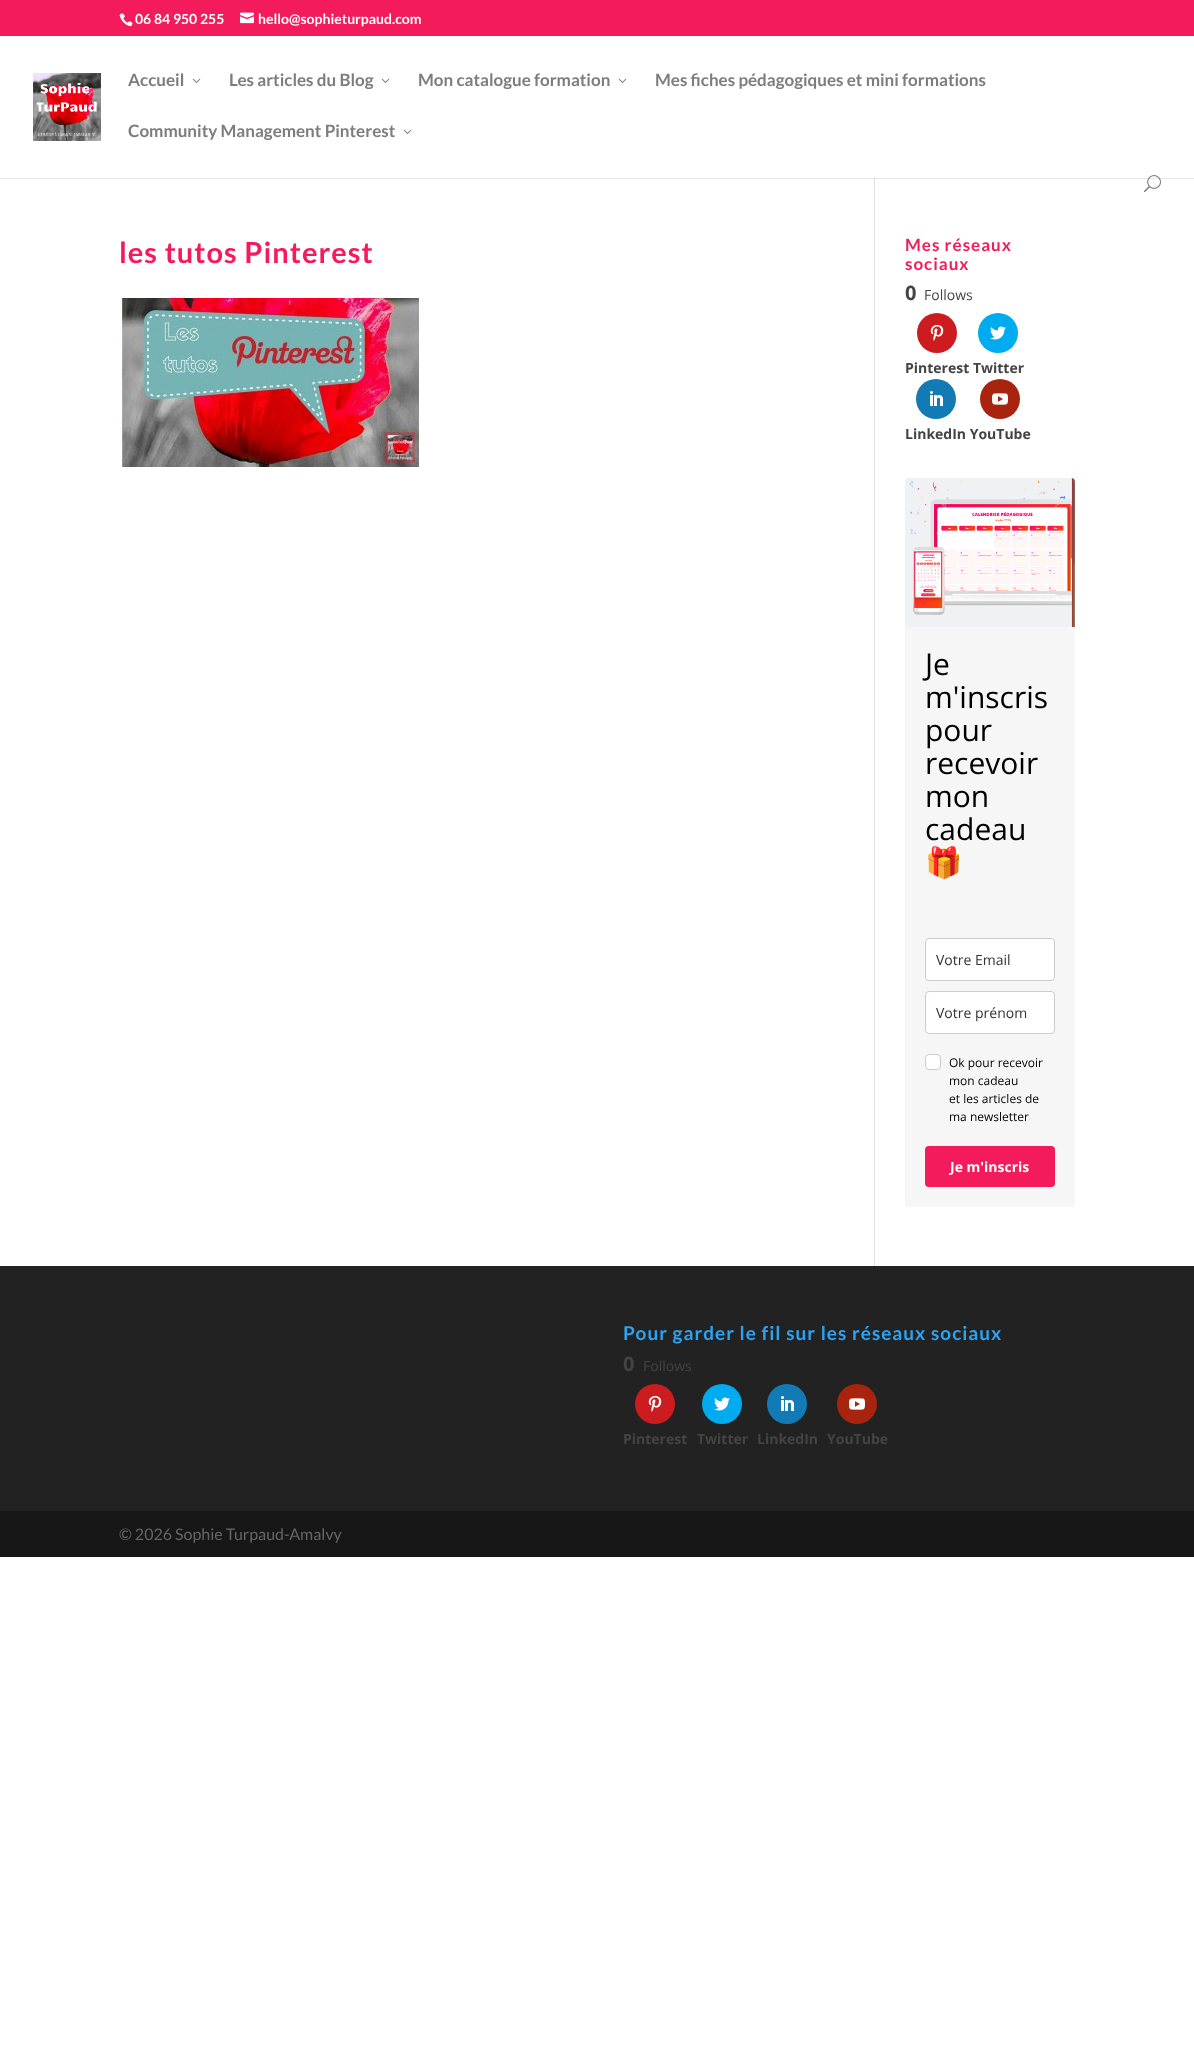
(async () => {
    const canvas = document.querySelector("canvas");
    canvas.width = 1194;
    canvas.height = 2049;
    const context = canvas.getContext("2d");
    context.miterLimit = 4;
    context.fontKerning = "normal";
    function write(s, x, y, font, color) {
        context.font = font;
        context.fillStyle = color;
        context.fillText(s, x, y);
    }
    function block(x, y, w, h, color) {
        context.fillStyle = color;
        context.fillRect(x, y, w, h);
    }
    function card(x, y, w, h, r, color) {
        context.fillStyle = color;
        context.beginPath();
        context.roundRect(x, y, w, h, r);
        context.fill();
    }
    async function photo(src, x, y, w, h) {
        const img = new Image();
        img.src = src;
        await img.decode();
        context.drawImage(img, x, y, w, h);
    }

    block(0, 0, 1194, 2049, "rgb(255, 255, 255)");
    block(0, 178, 1194, 1, "rgb(230, 230, 230)");
    block(0, 0, 1194, 36, "rgb(244, 27, 92)");
    await photo("media/1.png", 119, 13, 14, 14);
    write("06 84 950 255", 135, 24, "bold 14px Lato", "rgb(255, 255, 255)");
    await photo("media/2.png", 240, 12, 14, 12);
    write("hello@sophieturpaud.com", 258, 24, "bold 14px Lato", "rgb(255, 255, 255)");
    await photo("media/3.png", 33, 73, 68, 68);
    write("Accueil", 128, 86, "bold 17px Lato", "rgb(125, 125, 125)");
    await photo("media/4.png", 192, 78, 9, 5);
    write("Les articles du Blog", 229, 86, "bold 17px Lato", "rgb(125, 125, 125)");
    await photo("media/4.png", 381, 78, 9, 5);
    write("Mon catalogue formation", 418, 86, "bold 17px Lato", "rgb(125, 125, 125)");
    await photo("media/4.png", 618, 78, 9, 5);
    write("Mes fiches pédagogiques et mini formations", 655, 86, "bold 17px Lato", "rgb(125, 125, 125)");
    write("Community Management Pinterest", 128, 137, "bold 17px Lato", "rgb(125, 125, 125)");
    await photo("media/4.png", 403, 129, 9, 5);
    await photo("media/5.png", 1144, 175, 17, 18);
    block(874, 178, 1, 1088, "rgb(226, 226, 226)");
    block(874, 178, 1, 1, "rgb(203, 203, 203)");
    context.letterSpacing = "1px";
    write("les tutos Pinterest", 119, 263, "bold 29px Lato", "rgb(244, 27, 92)");
    await photo("media/6.png", 119, 298, 300, 169);
    write("Mes réseaux", 905, 251, "bold 17px Lato", "rgb(244, 27, 92)");
    write("sociaux", 905, 270, "bold 17px Lato", "rgb(244, 27, 92)");
    context.letterSpacing = "0px";
    write("0", 905, 300, "bold 20px Open Sans", "rgb(68, 68, 68)");
    write("Follows", 924, 300, "14px Open Sans", "rgb(68, 68, 68)");
    context.fillStyle = "rgb(0, 171, 240)";
    context.beginPath();
    context.arc(998, 333, 20, 0, Math.PI * 2);
    context.fill();
    await photo("media/7.png", 990, 326, 16, 14);
    context.fillStyle = "rgb(205, 28, 31)";
    context.beginPath();
    context.arc(937, 333, 20, 0, Math.PI * 2);
    context.fill();
    await photo("media/8.png", 930, 325, 14, 16);
    write("Pinterest Twitter", 905, 373, "bold 14px Open Sans", "rgb(68, 68, 68)");
    context.fillStyle = "rgb(168, 36, 15)";
    context.beginPath();
    context.arc(1000, 399, 20, 0, Math.PI * 2);
    context.fill();
    await photo("media/9.png", 992, 393, 16, 12);
    context.fillStyle = "rgb(18, 123, 182)";
    context.beginPath();
    context.arc(936, 399, 20, 0, Math.PI * 2);
    context.fill();
    await photo("media/10.png", 930, 391, 13, 15);
    write("LinkedIn YouTube", 905, 439, "bold 14px Open Sans", "rgb(68, 68, 68)");
    card(905, 478, 170, 729, 4, "rgb(246, 246, 246)");
    await photo("media/11.png", 905, 478, 170, 149);
    write("Je", 925, 675, "30px Open Sans", "rgb(0, 0, 0)");
    write("m'inscris", 925, 708, "30px Open Sans", "rgb(0, 0, 0)");
    write("pour", 925, 741, "30px Open Sans", "rgb(0, 0, 0)");
    write("recevoir", 925, 774, "30px Open Sans", "rgb(0, 0, 0)");
    write("mon", 925, 807, "30px Open Sans", "rgb(0, 0, 0)");
    write("cadeau", 925, 840, "30px Open Sans", "rgb(0, 0, 0)");
    write("🎁", 925, 873, "30px Noto Color Emoji", "rgb(0, 0, 0)");
    context.fillStyle = "rgb(255, 255, 255)";
    context.beginPath();
    context.roundRect(925.5, 938.5, 129, 42, 3.5);
    context.fill();
    context.strokeStyle = "rgb(204, 204, 204)";
    context.stroke();
    write("Votre Email", 936, 965, "14px Open Sans", "rgb(51, 51, 51)");
    context.fillStyle = "rgb(255, 255, 255)";
    context.beginPath();
    context.roundRect(925.5, 991.5, 129, 42, 3.5);
    context.fill();
    context.stroke();
    write("Votre prénom", 936, 1018, "14px Open Sans", "rgb(51, 51, 51)");
    context.fillStyle = "rgb(255, 255, 255)";
    context.beginPath();
    context.roundRect(925.5, 1054.5, 15, 15, 3.5);
    context.fill();
    context.stroke();
    write("Ok pour recevoir", 949, 1067, "12px Open Sans", "rgb(0, 0, 0)");
    write("mon cadeau", 949, 1085, "12px Open Sans", "rgb(0, 0, 0)");
    write("et les articles de", 949, 1103, "12px Open Sans", "rgb(0, 0, 0)");
    write("ma newsletter", 949, 1121, "12px Open Sans", "rgb(0, 0, 0)");
    card(925, 1146, 130, 41, 4, "rgb(244, 27, 92)");
    write("Je m'inscris", 950, 1172, "bold 14px Open Sans", "rgb(255, 255, 255)");
    block(0, 1266, 1194, 245, "rgb(34, 34, 34)");
    context.letterSpacing = "1px";
    write("Pour garder le fil sur les réseaux sociaux", 623, 1340, "bold 19px Lato", "rgb(46, 163, 242)");
    context.letterSpacing = "0px";
    write("0", 623, 1371, "bold 20px Open Sans", "rgb(68, 68, 68)");
    write("Follows", 643, 1371, "14px Open Sans", "rgb(68, 68, 68)");
    context.fillStyle = "rgb(205, 28, 31)";
    context.beginPath();
    context.arc(655, 1404, 20, 0, Math.PI * 2);
    context.fill();
    await photo("media/8.png", 648, 1396, 14, 16);
    write("Pinterest", 623, 1444, "bold 14px Open Sans", "rgb(68, 68, 68)");
    context.fillStyle = "rgb(0, 171, 240)";
    context.beginPath();
    context.arc(722, 1404, 20, 0, Math.PI * 2);
    context.fill();
    await photo("media/7.png", 714, 1397, 16, 14);
    write("Twitter", 697, 1444, "bold 14px Open Sans", "rgb(68, 68, 68)");
    context.fillStyle = "rgb(18, 123, 182)";
    context.beginPath();
    context.arc(787, 1404, 20, 0, Math.PI * 2);
    context.fill();
    await photo("media/10.png", 781, 1396, 13, 15);
    write("LinkedIn", 757, 1444, "bold 14px Open Sans", "rgb(68, 68, 68)");
    context.fillStyle = "rgb(168, 36, 15)";
    context.beginPath();
    context.arc(857, 1404, 20, 0, Math.PI * 2);
    context.fill();
    await photo("media/9.png", 849, 1398, 16, 12);
    write("YouTube", 827, 1444, "bold 14px Open Sans", "rgb(68, 68, 68)");
    block(0, 1511, 1194, 46, "rgb(23, 23, 23)");
    write("© 2026 Sophie Turpaud-Amalvy", 119, 1540, "16px Lato", "rgb(102, 102, 102)");
})();
